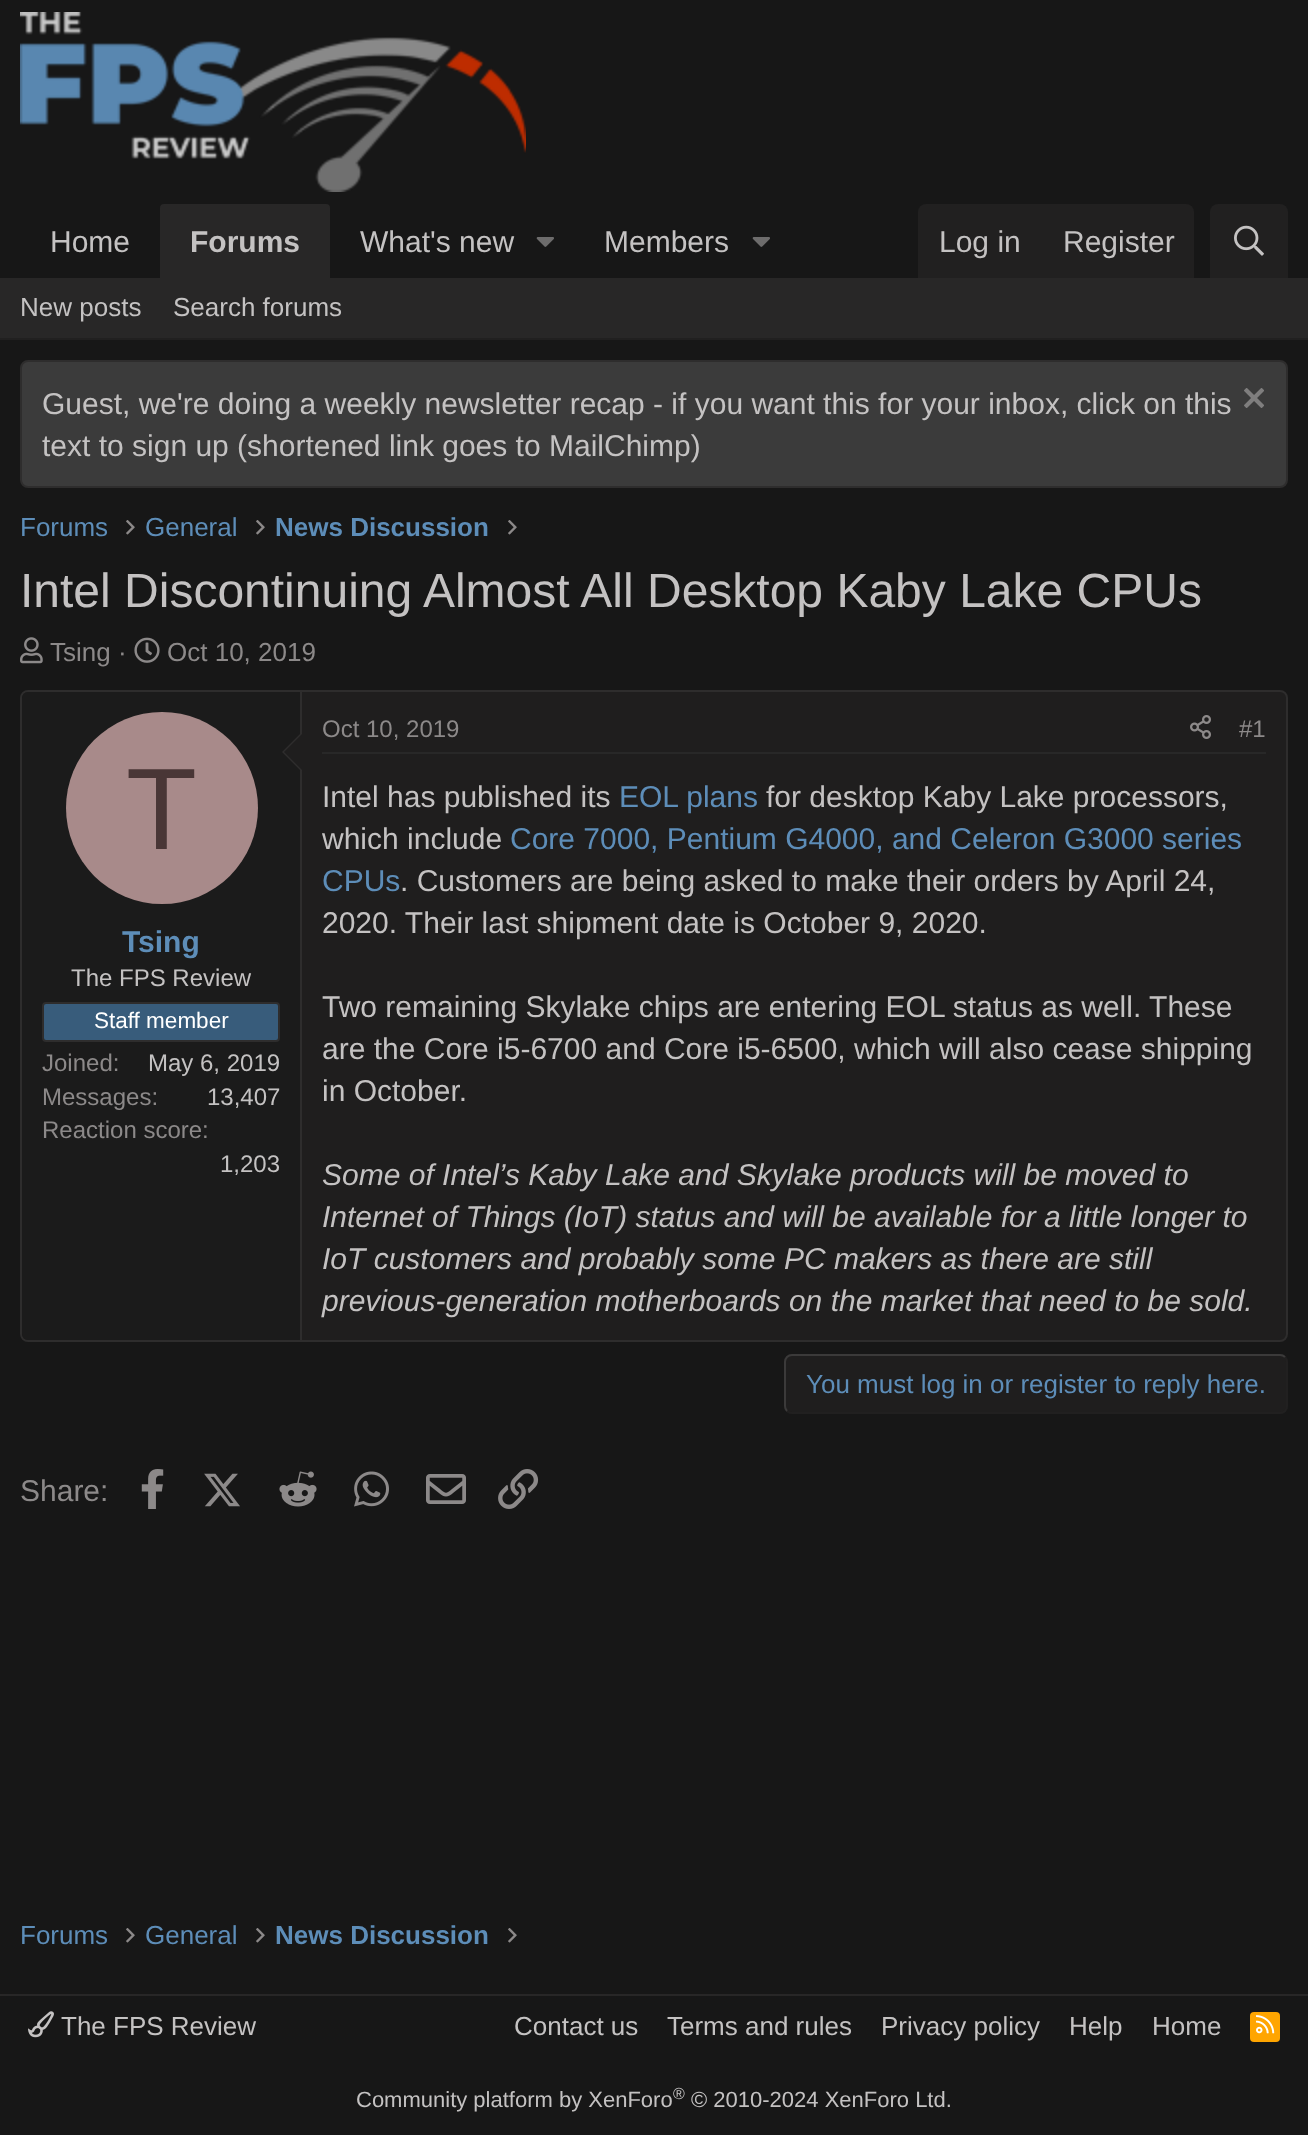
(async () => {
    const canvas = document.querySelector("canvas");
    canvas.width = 1308;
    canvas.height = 2135;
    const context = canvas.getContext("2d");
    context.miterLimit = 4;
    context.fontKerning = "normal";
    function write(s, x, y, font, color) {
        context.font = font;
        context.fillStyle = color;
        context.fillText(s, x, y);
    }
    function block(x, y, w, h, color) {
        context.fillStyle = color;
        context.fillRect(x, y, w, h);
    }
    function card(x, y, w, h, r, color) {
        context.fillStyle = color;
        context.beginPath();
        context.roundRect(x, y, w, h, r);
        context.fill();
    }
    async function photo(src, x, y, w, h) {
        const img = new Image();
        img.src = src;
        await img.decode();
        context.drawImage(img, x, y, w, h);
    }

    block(0, 0, 1308, 2135, "rgb(23, 23, 23)");
    await photo("media/1.png", 20, 12, 506, 180);
    write("Home", 50, 252, "30px Liberation Sans", "rgb(196, 194, 194)");
    context.fillStyle = "rgb(40, 39, 39)";
    context.beginPath();
    context.roundRect(160, 204, 170, 74, [4, 4, 0, 0]);
    context.fill();
    write("Forums", 190, 252, "bold 30px Liberation Sans", "rgb(196, 194, 194)");
    write("What's new", 360, 252, "30px Liberation Sans", "rgb(196, 194, 194)");
    await photo("media/2.png", 536, 237, 18, 10);
    write("Members", 604, 252, "30px Liberation Sans", "rgb(196, 194, 194)");
    await photo("media/2.png", 752, 237, 18, 10);
    context.fillStyle = "rgb(33, 32, 32)";
    context.beginPath();
    context.roundRect(918, 204, 276, 74, [8, 8, 0, 0]);
    context.fill();
    write("Log in", 939, 252, "30px Liberation Sans", "rgb(196, 194, 194)");
    write("Register", 1063, 252, "30px Liberation Sans", "rgb(196, 194, 194)");
    context.fillStyle = "rgb(33, 32, 32)";
    context.beginPath();
    context.roundRect(1210, 204, 78, 74, [8, 8, 0, 0]);
    context.fill();
    await photo("media/3.png", 1234, 225, 30, 31);
    block(0, 278, 1308, 60, "rgb(40, 39, 39)");
    block(0, 338, 1308, 2, "rgb(33, 32, 32)");
    write("New posts", 20, 316, "26px Liberation Sans", "rgb(196, 194, 194)");
    write("Search forums", 173, 316, "26px Liberation Sans", "rgb(196, 194, 194)");
    context.fillStyle = "rgb(59, 59, 59)";
    context.beginPath();
    context.roundRect(21, 361, 1266, 126, 7);
    context.fill();
    context.strokeStyle = "rgb(46, 45, 45)";
    context.lineWidth = 2;
    context.stroke();
    write("Guest, we're doing a weekly newsletter recap - if you want this for your inbox, click on this", 42, 414, "30px Liberation Sans", "rgb(196, 194, 194)");
    await photo("media/4.png", 1244, 388, 20, 20);
    write("text to sign up (shortened link goes to MailChimp)", 42, 456, "30px Liberation Sans", "rgb(196, 194, 194)");
    write("Forums", 20, 536, "26px Liberation Sans", "rgb(93, 141, 184)");
    await photo("media/5.png", 126, 520, 9, 15);
    write("General", 145, 536, "26px Liberation Sans", "rgb(93, 141, 184)");
    await photo("media/5.png", 256, 520, 9, 15);
    write("News Discussion", 275, 536, "bold 26px Liberation Sans", "rgb(93, 141, 184)");
    await photo("media/5.png", 508, 520, 9, 15);
    write("Intel Discontinuing Almost All Desktop Kaby Lake CPUs", 20, 607, "48px Liberation Sans", "rgb(196, 194, 194)");
    await photo("media/6.png", 20, 637, 23, 27);
    write("Tsing ·", 50, 661, "26px Liberation Sans", "rgb(140, 137, 137)");
    await photo("media/7.png", 134, 637, 26, 26);
    write("Oct 10, 2019", 167, 661, "26px Liberation Sans", "rgb(140, 137, 137)");
    context.fillStyle = "rgb(31, 30, 30)";
    context.beginPath();
    context.roundRect(21, 691, 1266, 650, 7);
    context.fill();
    context.stroke();
    context.fillStyle = "rgb(27, 27, 27)";
    context.beginPath();
    context.roundRect(22, 692, 280, 648, [6, 0, 0, 6]);
    context.fill();
    block(300, 692, 2, 648, "rgb(46, 45, 45)");
    context.beginPath();
    context.moveTo(302, 732);
    context.lineTo(302, 772);
    context.lineTo(282, 752);
    context.closePath();
    context.fill();
    context.fillStyle = "rgb(31, 30, 30)";
    context.beginPath();
    context.moveTo(302, 734);
    context.lineTo(302, 770);
    context.lineTo(284, 752);
    context.closePath();
    context.fill();
    context.fillStyle = "rgb(168, 138, 138)";
    context.beginPath();
    context.arc(162, 808, 96, 0, Math.PI * 2);
    context.fill();
    write("T", 126, 849, "116px Liberation Sans", "rgb(73, 54, 54)");
    write("Tsing", 122, 952, "bold 30px Liberation Sans", "rgb(93, 141, 184)");
    write("The FPS Review", 71, 986, "24px Liberation Sans", "rgb(196, 194, 194)");
    context.fillStyle = "rgb(56, 92, 123)";
    context.beginPath();
    context.roundRect(43, 1003, 236, 38, 3);
    context.fill();
    context.stroke();
    write("Staff member", 94, 1028, "22.5px Liberation Sans", "rgb(255, 255, 255)");
    write("Joined:", 42, 1071, "24px Liberation Sans", "rgb(140, 137, 137)");
    write("May 6, 2019", 148, 1071, "24px Liberation Sans", "rgb(196, 194, 194)");
    write("Messages:", 42, 1105, "24px Liberation Sans", "rgb(140, 137, 137)");
    write("13,407", 207, 1105, "24px Liberation Sans", "rgb(196, 194, 194)");
    write("Reaction score:", 42, 1138, "24px Liberation Sans", "rgb(140, 137, 137)");
    write("1,203", 220, 1172, "24px Liberation Sans", "rgb(196, 194, 194)");
    block(322, 752, 944, 2, "rgb(40, 40, 40)");
    write("Oct 10, 2019", 322, 737, "24px Liberation Sans", "rgb(140, 137, 137)");
    await photo("media/8.png", 1190, 715, 21, 24);
    write("#1", 1239, 737, "24px Liberation Sans", "rgb(140, 137, 137)");
    write("Intel has published its", 322, 807, "30px Liberation Sans", "rgb(196, 194, 194)");
    write("EOL plans", 619, 807, "30px Liberation Sans", "rgb(93, 141, 184)");
    write("for desktop Kaby Lake processors,", 766, 807, "30px Liberation Sans", "rgb(196, 194, 194)");
    write("which include", 322, 849, "30px Liberation Sans", "rgb(196, 194, 194)");
    write("Core 7000, Pentium G4000, and Celeron G3000 series", 510, 849, "30px Liberation Sans", "rgb(93, 141, 184)");
    write("CPUs", 322, 891, "30px Liberation Sans", "rgb(93, 141, 184)");
    write(". Customers are being asked to make their orders by April 24,", 400, 891, "30px Liberation Sans", "rgb(196, 194, 194)");
    write("2020. Their last shipment date is October 9, 2020.", 322, 933, "30px Liberation Sans", "rgb(196, 194, 194)");
    write("Two remaining Skylake chips are entering EOL status as well. These", 322, 1017, "30px Liberation Sans", "rgb(196, 194, 194)");
    write("are the Core i5-6700 and Core i5-6500, which will also cease shipping", 322, 1059, "30px Liberation Sans", "rgb(196, 194, 194)");
    write("in October.", 322, 1101, "30px Liberation Sans", "rgb(196, 194, 194)");
    write("Some of Intel’s Kaby Lake and Skylake products will be moved to", 322, 1185, "italic 30px Liberation Sans", "rgb(196, 194, 194)");
    write("Internet of Things (IoT) status and will be available for a little longer to", 322, 1227, "italic 30px Liberation Sans", "rgb(196, 194, 194)");
    write("IoT customers and probably some PC makers as there are still", 322, 1269, "italic 30px Liberation Sans", "rgb(196, 194, 194)");
    write("previous-generation motherboards on the market that need to be sold.", 322, 1311, "italic 30px Liberation Sans", "rgb(196, 194, 194)");
    card(784, 1354, 504, 60, 8, "rgb(31, 30, 30)");
    context.beginPath();
    context.moveTo(1285, 1357);
    context.bezierCurveTo(1286.5, 1358.5, 1287, 1360, 1287, 1362);
    context.lineTo(1287, 1406);
    context.bezierCurveTo(1287, 1408, 1286.5, 1409.5, 1285, 1411);
    context.bezierCurveTo(1283.5, 1412.5, 1282, 1413, 1280, 1413);
    context.lineTo(792, 1413);
    context.bezierCurveTo(790, 1413, 788.5, 1412.5, 787, 1411);
    context.strokeStyle = "rgb(33, 32, 32)";
    context.stroke();
    context.beginPath();
    context.moveTo(787, 1411);
    context.bezierCurveTo(785.5, 1409.5, 785, 1408, 785, 1406);
    context.lineTo(785, 1362);
    context.bezierCurveTo(785, 1360, 785.5, 1358.5, 787, 1357);
    context.bezierCurveTo(788.5, 1355.5, 790, 1355, 792, 1355);
    context.lineTo(1280, 1355);
    context.bezierCurveTo(1282, 1355, 1283.5, 1355.5, 1285, 1357);
    context.strokeStyle = "rgb(59, 58, 58)";
    context.stroke();
    write("You must log in or register to reply here.", 806, 1393, "26px Liberation Sans", "rgb(93, 141, 184)");
    write("Share:", 20, 1501, "30px Liberation Sans", "rgb(140, 137, 137)");
    await photo("media/9.png", 141, 1469, 23, 40);
    await photo("media/10.png", 204, 1473, 36, 34);
    await photo("media/11.png", 279, 1471, 38, 36);
    await photo("media/12.png", 354, 1471, 35, 36);
    await photo("media/13.png", 426, 1474, 40, 30);
    await photo("media/14.png", 498, 1469, 41, 40);
    write("Forums", 20, 1944, "26px Liberation Sans", "rgb(93, 141, 184)");
    await photo("media/5.png", 126, 1928, 9, 15);
    write("General", 145, 1944, "26px Liberation Sans", "rgb(93, 141, 184)");
    await photo("media/5.png", 256, 1928, 9, 15);
    write("News Discussion", 275, 1944, "bold 26px Liberation Sans", "rgb(93, 141, 184)");
    await photo("media/5.png", 508, 1928, 9, 15);
    block(0, 1994, 1308, 2, "rgb(40, 39, 39)");
    await photo("media/15.png", 28, 2011, 26, 27);
    write("The FPS Review", 61, 2035, "26px Liberation Sans", "rgb(196, 194, 194)");
    write("Contact us", 514, 2035, "26px Liberation Sans", "rgb(196, 194, 194)");
    write("Terms and rules", 667, 2035, "26px Liberation Sans", "rgb(196, 194, 194)");
    write("Privacy policy", 881, 2035, "26px Liberation Sans", "rgb(196, 194, 194)");
    write("Help", 1069, 2035, "26px Liberation Sans", "rgb(196, 194, 194)");
    write("Home", 1152, 2035, "26px Liberation Sans", "rgb(196, 194, 194)");
    card(1250, 2012, 30, 30, 4, "rgb(255, 165, 0)");
    await photo("media/16.png", 1256, 2015, 19, 19);
    write("Community platform by XenForo", 356, 2107, "22px Liberation Sans", "rgb(196, 194, 194)");
    write("®", 673, 2099, "16px Liberation Sans", "rgb(196, 194, 194)");
    write("© 2010-2024 XenForo Ltd.", 691, 2107, "22px Liberation Sans", "rgb(196, 194, 194)");
})();
